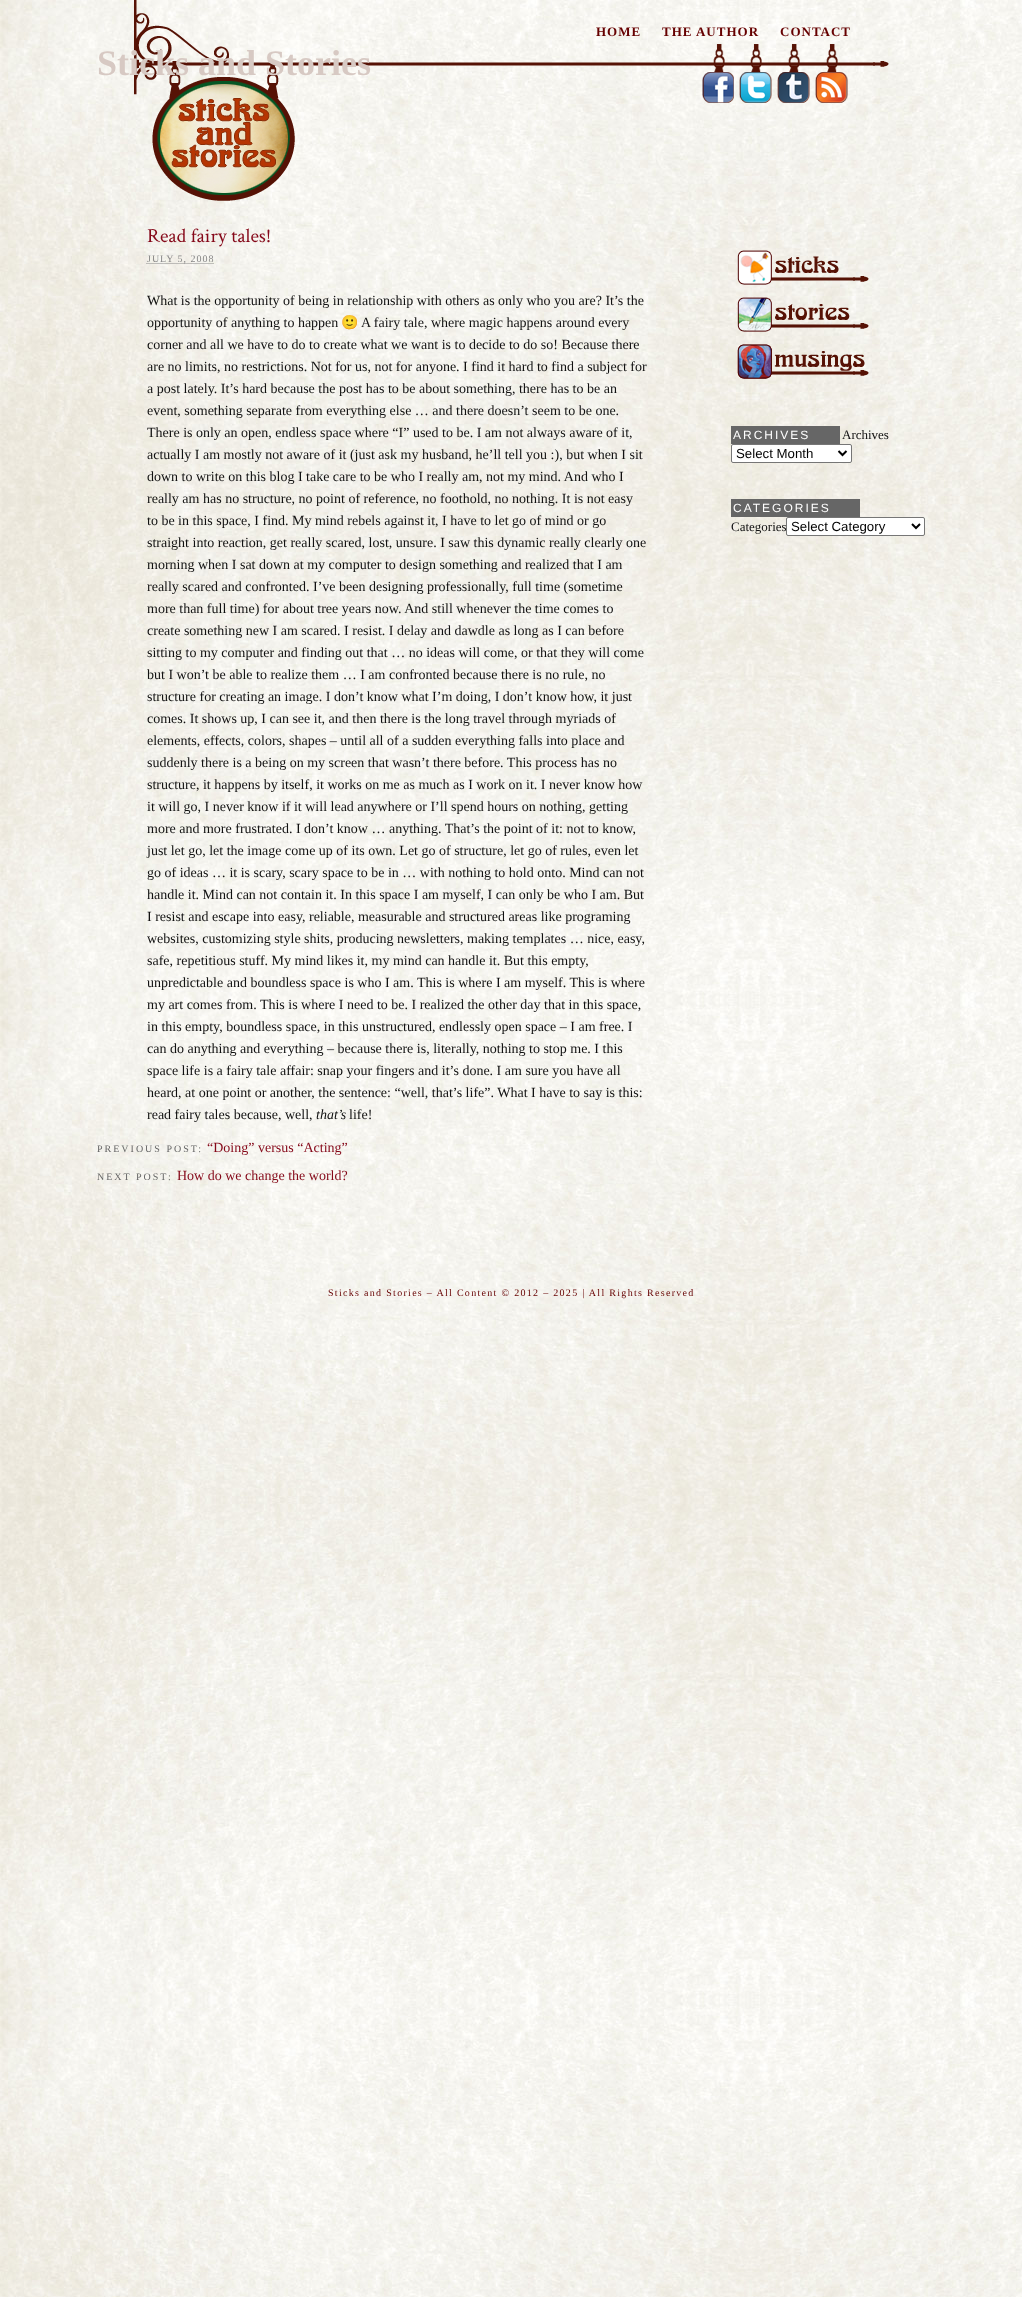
(async () => {
    const canvas = document.querySelector("canvas");
    canvas.width = 1022;
    canvas.height = 2297;
    const context = canvas.getContext("2d");
    context.miterLimit = 4;
    context.fontKerning = "normal";
    function write(s, x, y, font, color) {
        context.font = font;
        context.fillStyle = color;
        context.fillText(s, x, y);
    }
    function block(x, y, w, h, color) {
        context.fillStyle = color;
        context.fillRect(x, y, w, h);
    }
    async function photo(src, x, y, w, h) {
        const img = new Image();
        img.src = src;
        await img.decode();
        context.drawImage(img, x, y, w, h);
    }

    block(0, 0, 1022, 2297, "rgb(255, 255, 255)");
    await photo("media/1.png", 0, 0, 1022, 2297);
    await photo("media/2.png", 134, 0, 755, 201);
    context.letterSpacing = "1px";
    write("HOME", 596, 36, "bold 13px Liberation Serif", "rgb(102, 0, 0)");
    write("THE AUTHOR", 662, 36, "bold 13px Liberation Serif", "rgb(102, 0, 0)");
    write("CONTACT", 780, 36, "bold 13px Liberation Serif", "rgb(102, 0, 0)");
    context.letterSpacing = "0px";
    write("Sticks and Stories", 97, 75, "bold 36px Liberation Serif", "rgb(215, 201, 195)");
    await photo("media/3.png", 702, 44, 32, 59);
    await photo("media/4.png", 739, 44, 33, 59);
    await photo("media/5.png", 777, 44, 33, 59);
    await photo("media/6.png", 815, 44, 33, 59);
    write("Read fairy tales!", 147, 242, "20px Crimson Text", "rgb(133, 8, 25)");
    context.beginPath();
    context.moveTo(146.5, 263.5);
    context.lineTo(214, 263.5);
    context.strokeStyle = "rgb(136, 136, 136)";
    context.setLineDash([1, 1]);
    context.stroke();
    context.letterSpacing = "1px";
    write("JULY 5, 2008", 147, 262, "10px Liberation Serif", "rgb(136, 136, 136)");
    context.letterSpacing = "0px";
    write("What is the opportunity of being in relationship with others as only who you are? It’s the", 147, 305, "14px Liberation Serif", "rgb(17, 17, 17)");
    write("opportunity of anything to happen", 147, 327, "14px Liberation Serif", "rgb(17, 17, 17)");
    write("🙂", 341, 327, "14px Noto Color Emoji", "rgb(17, 17, 17)");
    write("A fairy tale, where magic happens around every", 361, 327, "14px Liberation Serif", "rgb(17, 17, 17)");
    write("corner and all we have to do to create what we want is to decide to do so! Because there", 147, 349, "14px Liberation Serif", "rgb(17, 17, 17)");
    write("are no limits, no restrictions. Not for us, not for anyone. I find it hard to find a subject for", 147, 371, "14px Liberation Serif", "rgb(17, 17, 17)");
    write("a post lately. It’s hard because the post has to be about something, there has to be an", 147, 393, "14px Liberation Serif", "rgb(17, 17, 17)");
    write("event, something separate from everything else … and there doesn’t seem to be one.", 147, 415, "14px Liberation Serif", "rgb(17, 17, 17)");
    write("There is only an open, endless space where “I” used to be. I am not always aware of it,", 147, 437, "14px Liberation Serif", "rgb(17, 17, 17)");
    write("actually I am mostly not aware of it (just ask my husband, he’ll tell you :), but when I sit", 147, 459, "14px Liberation Serif", "rgb(17, 17, 17)");
    write("down to write on this blog I take care to be who I really am, not my mind. And who I", 147, 481, "14px Liberation Serif", "rgb(17, 17, 17)");
    write("really am has no structure, no point of reference, no foothold, no nothing. It is not easy", 147, 503, "14px Liberation Serif", "rgb(17, 17, 17)");
    write("to be in this space, I find. My mind rebels against it, I have to let go of mind or go", 147, 525, "14px Liberation Serif", "rgb(17, 17, 17)");
    write("straight into reaction, get really scared, lost, unsure. I saw this dynamic really clearly one", 147, 547, "14px Liberation Serif", "rgb(17, 17, 17)");
    write("morning when I sat down at my computer to design something and realized that I am", 147, 569, "14px Liberation Serif", "rgb(17, 17, 17)");
    write("really scared and confronted. I’ve been designing professionally, full time (sometime", 147, 591, "14px Liberation Serif", "rgb(17, 17, 17)");
    write("more than full time) for about tree years now. And still whenever the time comes to", 147, 613, "14px Liberation Serif", "rgb(17, 17, 17)");
    write("create something new I am scared. I resist. I delay and dawdle as long as I can before", 147, 635, "14px Liberation Serif", "rgb(17, 17, 17)");
    write("sitting to my computer and finding out that … no ideas will come, or that they will come", 147, 657, "14px Liberation Serif", "rgb(17, 17, 17)");
    write("but I won’t be able to realize them … I am confronted because there is no rule, no", 147, 679, "14px Liberation Serif", "rgb(17, 17, 17)");
    write("structure for creating an image. I don’t know what I’m doing, I don’t know how, it just", 147, 701, "14px Liberation Serif", "rgb(17, 17, 17)");
    write("comes. It shows up, I can see it, and then there is the long travel through myriads of", 147, 723, "14px Liberation Serif", "rgb(17, 17, 17)");
    write("elements, effects, colors, shapes – until all of a sudden everything falls into place and", 147, 745, "14px Liberation Serif", "rgb(17, 17, 17)");
    write("suddenly there is a being on my screen that wasn’t there before. This process has no", 147, 767, "14px Liberation Serif", "rgb(17, 17, 17)");
    write("structure, it happens by itself, it works on me as much as I work on it. I never know how", 147, 789, "14px Liberation Serif", "rgb(17, 17, 17)");
    write("it will go, I never know if it will lead anywhere or I’ll spend hours on nothing, getting", 147, 811, "14px Liberation Serif", "rgb(17, 17, 17)");
    write("more and more frustrated. I don’t know … anything. That’s the point of it: not to know,", 147, 833, "14px Liberation Serif", "rgb(17, 17, 17)");
    write("just let go, let the image come up of its own. Let go of structure, let go of rules, even let", 147, 855, "14px Liberation Serif", "rgb(17, 17, 17)");
    write("go of ideas … it is scary, scary space to be in … with nothing to hold onto. Mind can not", 147, 877, "14px Liberation Serif", "rgb(17, 17, 17)");
    write("handle it. Mind can not contain it. In this space I am myself, I can only be who I am. But", 147, 899, "14px Liberation Serif", "rgb(17, 17, 17)");
    write("I resist and escape into easy, reliable, measurable and structured areas like programing", 147, 921, "14px Liberation Serif", "rgb(17, 17, 17)");
    write("websites, customizing style shits, producing newsletters, making templates … nice, easy,", 147, 943, "14px Liberation Serif", "rgb(17, 17, 17)");
    write("safe, repetitious stuff. My mind likes it, my mind can handle it. But this empty,", 147, 965, "14px Liberation Serif", "rgb(17, 17, 17)");
    write("unpredictable and boundless space is who I am. This is where I am myself. This is where", 147, 987, "14px Liberation Serif", "rgb(17, 17, 17)");
    write("my art comes from. This is where I need to be. I realized the other day that in this space,", 147, 1009, "14px Liberation Serif", "rgb(17, 17, 17)");
    write("in this empty, boundless space, in this unstructured, endlessly open space – I am free. I", 147, 1031, "14px Liberation Serif", "rgb(17, 17, 17)");
    write("can do anything and everything – because there is, literally, nothing to stop me. I this", 147, 1053, "14px Liberation Serif", "rgb(17, 17, 17)");
    write("space life is a fairy tale affair: snap your fingers and it’s done. I am sure you have all", 147, 1075, "14px Liberation Serif", "rgb(17, 17, 17)");
    write("heard, at one point or another, the sentence: “well, that’s life”. What I have to say is this:", 147, 1097, "14px Liberation Serif", "rgb(17, 17, 17)");
    write("read fairy tales because, well,", 147, 1119, "14px Liberation Serif", "rgb(17, 17, 17)");
    write("that’s", 316, 1119, "italic 14px Liberation Serif", "rgb(17, 17, 17)");
    write("life!", 349, 1119, "14px Liberation Serif", "rgb(17, 17, 17)");
    context.letterSpacing = "2px";
    write("PREVIOUS POST:", 97, 1152, "10px Liberation Serif", "rgb(102, 102, 102)");
    context.letterSpacing = "0px";
    write("“Doing” versus “Acting”", 207, 1152, "14px Liberation Serif", "rgb(133, 8, 25)");
    context.letterSpacing = "2px";
    write("NEXT POST:", 97, 1180, "10px Liberation Serif", "rgb(102, 102, 102)");
    context.letterSpacing = "0px";
    write("How do we change the world?", 177, 1180, "14px Liberation Serif", "rgb(133, 8, 25)");
    await photo("media/7.png", 737, 250, 132, 35);
    await photo("media/8.png", 737, 297, 132, 35);
    await photo("media/9.png", 737, 344, 132, 35);
    block(731, 426, 109, 18, "rgb(102, 102, 102)");
    context.letterSpacing = "2px";
    write("ARCHIVES", 733, 439, "12px Liberation Sans", "rgb(255, 255, 255)");
    context.letterSpacing = "0px";
    write("Archives", 842, 439, "13px Liberation Serif", "rgb(17, 17, 17)");
    context.fillStyle = "rgb(255, 255, 255)";
    context.beginPath();
    context.roundRect(731.5, 444.5, 120, 18, 1.5);
    context.fill();
    context.strokeStyle = "rgb(118, 118, 118)";
    context.setLineDash([]);
    context.stroke();
    context.beginPath();
    context.moveTo(838.5, 451);
    context.lineTo(842.5, 455);
    context.lineTo(846.5, 451);
    context.strokeStyle = "rgb(0, 0, 0)";
    context.lineWidth = 2;
    context.stroke();
    write("Select Month", 736, 458, "13.25px Liberation Sans", "rgb(0, 0, 0)");
    block(731, 499, 129, 18, "rgb(102, 102, 102)");
    context.letterSpacing = "2px";
    write("CATEGORIES", 733, 512, "12px Liberation Sans", "rgb(255, 255, 255)");
    context.letterSpacing = "0px";
    write("Categories", 731, 531, "13px Liberation Serif", "rgb(17, 17, 17)");
    context.fillStyle = "rgb(255, 255, 255)";
    context.beginPath();
    context.roundRect(786.5, 517.5, 138, 18, 1.5);
    context.fill();
    context.strokeStyle = "rgb(118, 118, 118)";
    context.lineWidth = 1;
    context.stroke();
    context.beginPath();
    context.moveTo(912, 524);
    context.lineTo(916, 528);
    context.lineTo(920, 524);
    context.strokeStyle = "rgb(0, 0, 0)";
    context.lineWidth = 2;
    context.stroke();
    write("Select Category", 791, 531, "13.25px Liberation Sans", "rgb(0, 0, 0)");
    context.letterSpacing = "1.3px";
    write("Sticks and Stories – All Content © 2012 – 2025 | All Rights Reserved", 328, 1296, "10px Liberation Serif", "rgb(102, 0, 0)");
})();
